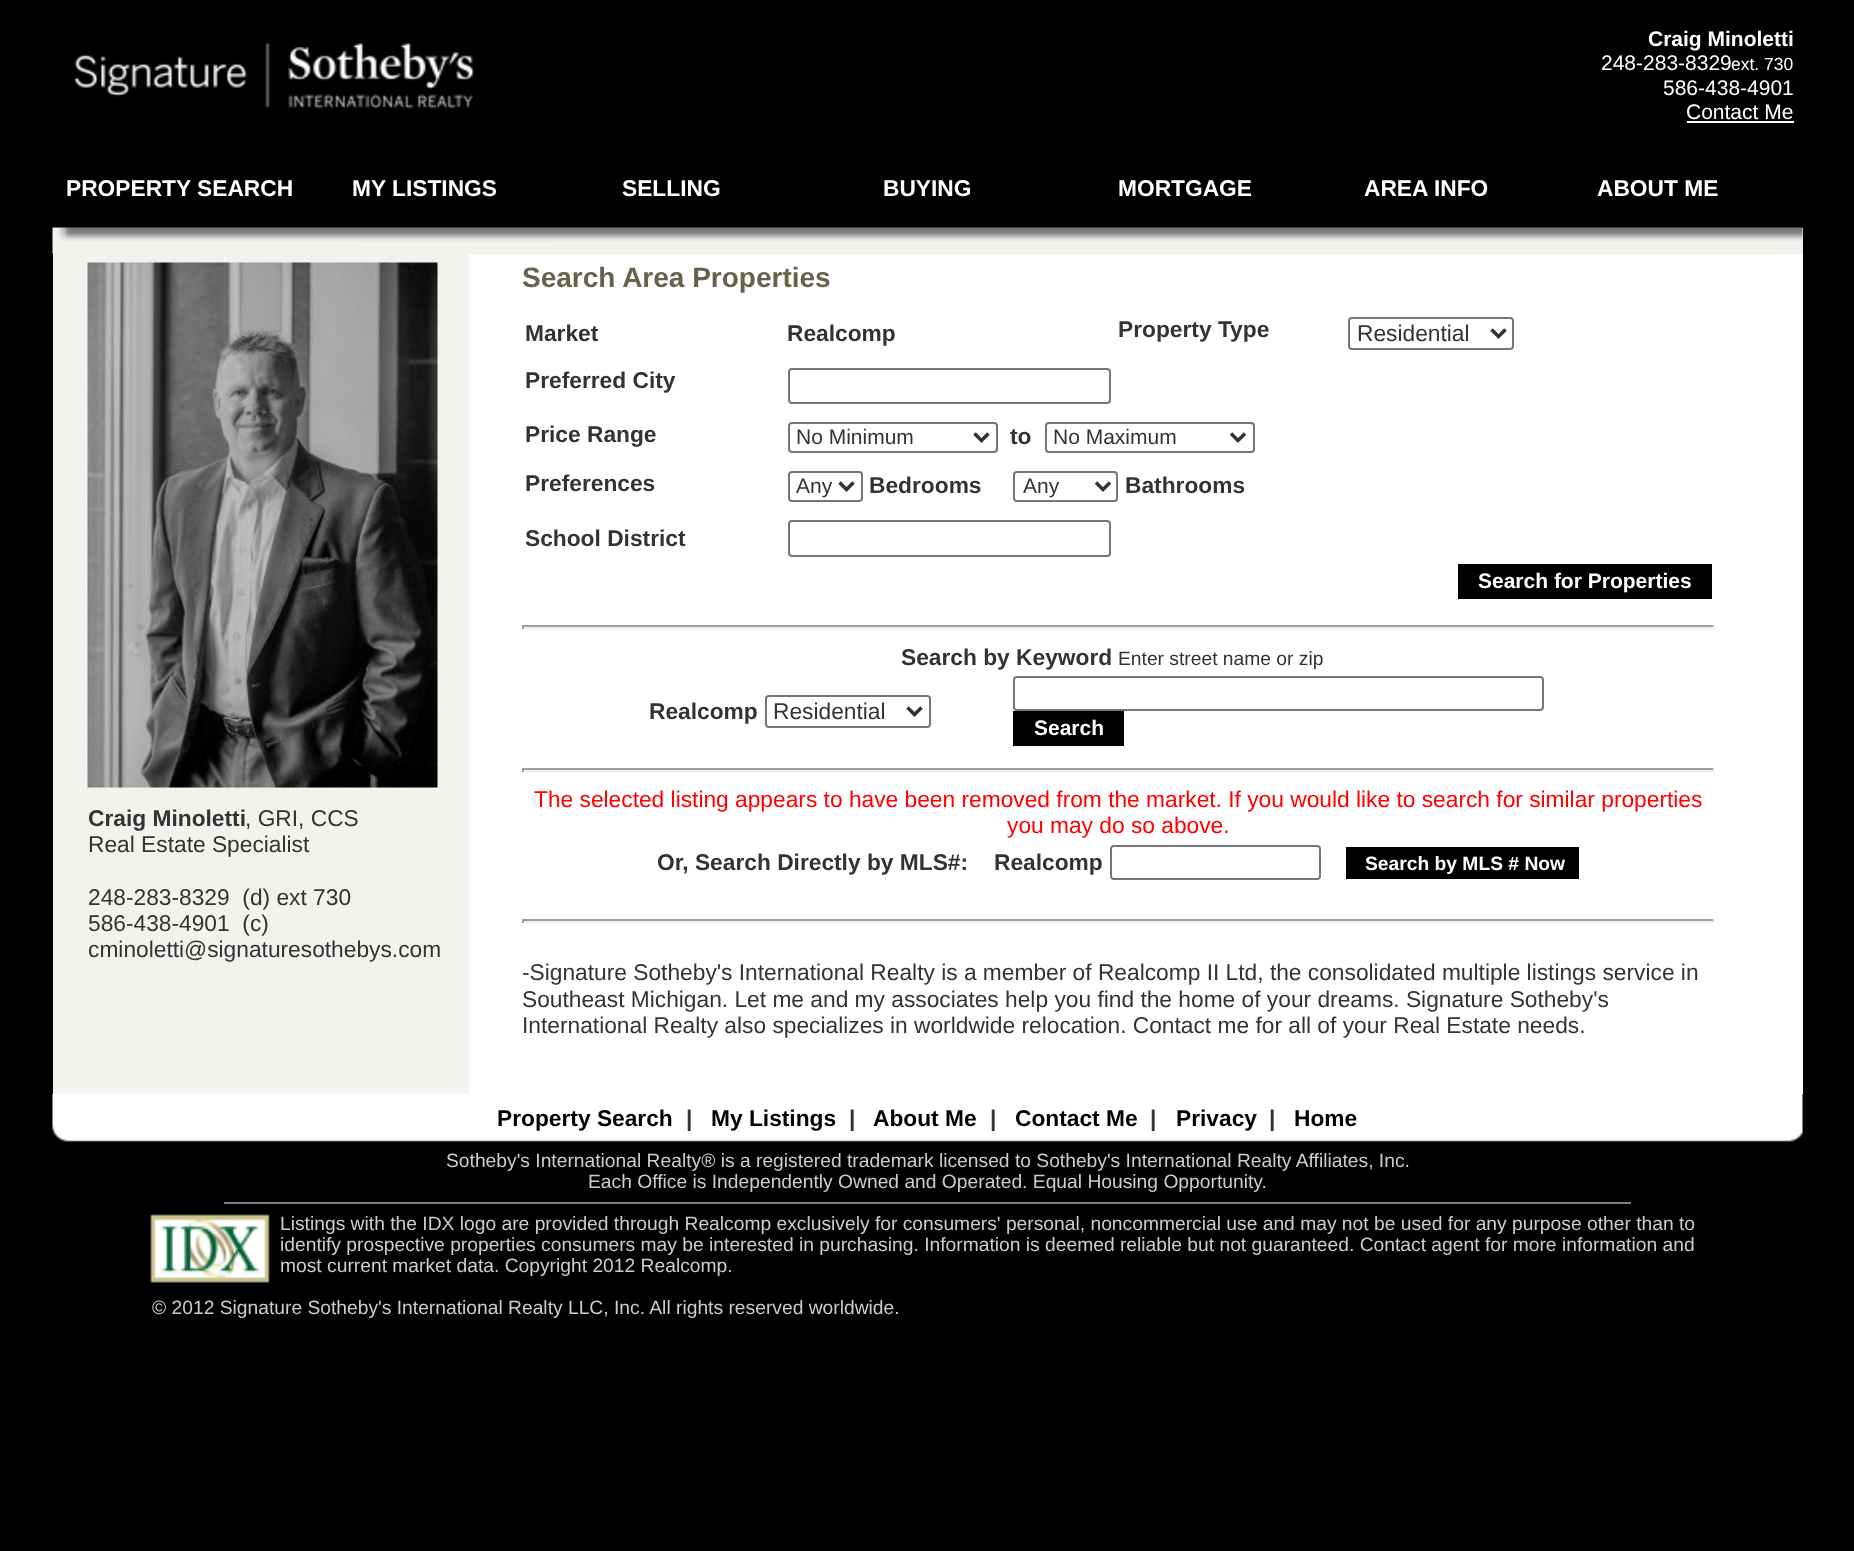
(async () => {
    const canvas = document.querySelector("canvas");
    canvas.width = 1854;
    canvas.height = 1551;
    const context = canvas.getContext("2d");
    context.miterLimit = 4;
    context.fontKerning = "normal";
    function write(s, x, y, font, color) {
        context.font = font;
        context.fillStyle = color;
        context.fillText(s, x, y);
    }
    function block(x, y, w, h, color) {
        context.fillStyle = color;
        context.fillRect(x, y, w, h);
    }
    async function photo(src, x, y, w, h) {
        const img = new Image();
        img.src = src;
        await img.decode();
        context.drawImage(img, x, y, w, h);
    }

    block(0, 0, 1854, 1551, "rgb(0, 0, 0)");
    await photo("media/1.png", 74, 42, 401, 67);
    write("Craig Minoletti", 1648, 46, "bold 21px Liberation Sans", "rgb(255, 255, 255)");
    write("248-283-8329", 1601, 70, "21px Liberation Sans", "rgb(255, 255, 255)");
    write("ext. 730", 1731, 70, "17.5px Liberation Sans", "rgb(255, 255, 255)");
    write("586-438-4901", 1663, 95, "21px Liberation Sans", "rgb(255, 255, 255)");
    write("Contact Me", 1686, 119, "21px Liberation Sans", "rgb(255, 255, 255)");
    block(1687, 121, 107, 2, "rgb(255, 255, 255)");
    write("PROPERTY SEARCH", 66, 196, "bold 22.75px Liberation Sans", "rgb(255, 255, 255)");
    write("MY LISTINGS", 352, 196, "bold 22.75px Liberation Sans", "rgb(255, 255, 255)");
    write("SELLING", 622, 196, "bold 22.75px Liberation Sans", "rgb(255, 255, 255)");
    write("BUYING", 883, 196, "bold 22.75px Liberation Sans", "rgb(255, 255, 255)");
    write("MORTGAGE", 1118, 196, "bold 22.75px Liberation Sans", "rgb(255, 255, 255)");
    write("AREA INFO", 1364, 196, "bold 22.75px Liberation Sans", "rgb(255, 255, 255)");
    write("ABOUT ME", 1597, 196, "bold 22.75px Liberation Sans", "rgb(255, 255, 255)");
    block(53, 228, 1750, 26, "rgb(247, 243, 239)");
    await photo("media/2.png", 52, 227, 1751, 27);
    block(53, 254, 416, 840, "rgb(242, 242, 239)");
    await photo("media/3.png", 87, 262, 351, 526);
    write("Craig Minoletti", 88, 826, "bold 22.75px Liberation Sans", "rgb(51, 51, 51)");
    write(", GRI, CCS", 245, 826, "22.75px Liberation Sans", "rgb(51, 51, 51)");
    write("Real Estate Specialist", 88, 852, "22.75px Liberation Sans", "rgb(51, 51, 51)");
    write("248-283-8329  (d) ext 730", 88, 905, "22.75px Liberation Sans", "rgb(51, 51, 51)");
    write("586-438-4901  (c)", 88, 931, "22.75px Liberation Sans", "rgb(51, 51, 51)");
    write("cminoletti@signaturesothebys.com", 88, 957, "22.75px Liberation Sans", "rgb(51, 51, 51)");
    block(469, 254, 1334, 840, "rgb(255, 255, 255)");
    write("Search Area Properties", 522, 287, "bold 28px Liberation Sans", "rgb(105, 98, 74)");
    write("Market", 525, 341, "bold 22.75px Liberation Sans", "rgb(51, 51, 51)");
    write("Realcomp", 787, 341, "bold 22.75px Liberation Sans", "rgb(51, 51, 51)");
    write("Property Type", 1118, 337, "bold 22.75px Liberation Sans", "rgb(51, 51, 51)");
    context.beginPath();
    context.roundRect(1349, 318, 164, 31, 3);
    context.strokeStyle = "rgb(118, 118, 118)";
    context.lineWidth = 2;
    context.stroke();
    context.beginPath();
    context.moveTo(1491.5, 329.5);
    context.lineTo(1498.5, 336.5);
    context.lineTo(1505.5, 329.5);
    context.strokeStyle = "rgb(51, 51, 51)";
    context.lineWidth = 3.5;
    context.stroke();
    write("Residential", 1357, 341, "22.75px Liberation Sans", "rgb(51, 51, 51)");
    write("Preferred City", 525, 388, "bold 22.75px Liberation Sans", "rgb(51, 51, 51)");
    context.beginPath();
    context.roundRect(789, 369, 321, 34, 3);
    context.strokeStyle = "rgb(118, 118, 118)";
    context.lineWidth = 2;
    context.stroke();
    write("Price Range", 525, 442, "bold 22.75px Liberation Sans", "rgb(51, 51, 51)");
    context.beginPath();
    context.roundRect(789, 423, 208, 29, 3);
    context.stroke();
    context.beginPath();
    context.moveTo(974.5, 433.5);
    context.lineTo(981.5, 440.5);
    context.lineTo(988.5, 433.5);
    context.strokeStyle = "rgb(51, 51, 51)";
    context.lineWidth = 3.5;
    context.stroke();
    write("No Minimum", 796, 444, "21px Liberation Sans", "rgb(51, 51, 51)");
    write("to", 1010, 444, "bold 22.75px Liberation Sans", "rgb(51, 51, 51)");
    context.beginPath();
    context.roundRect(1046, 423, 208, 29, 3);
    context.strokeStyle = "rgb(118, 118, 118)";
    context.lineWidth = 2;
    context.stroke();
    context.beginPath();
    context.moveTo(1231, 433.5);
    context.lineTo(1238, 440.5);
    context.lineTo(1245, 433.5);
    context.strokeStyle = "rgb(51, 51, 51)";
    context.lineWidth = 3.5;
    context.stroke();
    write("No Maximum", 1053, 444, "21px Liberation Sans", "rgb(51, 51, 51)");
    write("Preferences", 525, 491, "bold 22.75px Liberation Sans", "rgb(51, 51, 51)");
    context.beginPath();
    context.roundRect(789, 472, 73, 29, 3);
    context.strokeStyle = "rgb(118, 118, 118)";
    context.lineWidth = 2;
    context.stroke();
    context.beginPath();
    context.moveTo(839.5, 482.5);
    context.lineTo(846.5, 489.5);
    context.lineTo(853.5, 482.5);
    context.strokeStyle = "rgb(51, 51, 51)";
    context.lineWidth = 3.5;
    context.stroke();
    write("Any", 796, 493, "21px Liberation Sans", "rgb(51, 51, 51)");
    write("Bedrooms", 869, 493, "bold 22.75px Liberation Sans", "rgb(51, 51, 51)");
    context.beginPath();
    context.roundRect(1014, 472, 103, 29, 3);
    context.strokeStyle = "rgb(118, 118, 118)";
    context.lineWidth = 2;
    context.stroke();
    context.beginPath();
    context.moveTo(1096, 482.5);
    context.lineTo(1103, 489.5);
    context.lineTo(1110, 482.5);
    context.strokeStyle = "rgb(51, 51, 51)";
    context.lineWidth = 3.5;
    context.stroke();
    write("Any", 1023, 493, "21px Liberation Sans", "rgb(51, 51, 51)");
    write("Bathrooms", 1125, 493, "bold 22.75px Liberation Sans", "rgb(51, 51, 51)");
    write("School District", 525, 546, "bold 22.75px Liberation Sans", "rgb(51, 51, 51)");
    context.beginPath();
    context.roundRect(789, 521, 321, 35, 3);
    context.strokeStyle = "rgb(118, 118, 118)";
    context.lineWidth = 2;
    context.stroke();
    block(1458, 564, 254, 35, "rgb(0, 0, 0)");
    write("Search for Properties", 1478, 588, "bold 21px Liberation Sans", "rgb(255, 255, 255)");
    block(522, 625, 1193, 2, "rgb(159, 159, 159)");
    block(1713, 625, 2, 4, "rgb(238, 238, 238)");
    block(522, 627, 1193, 2, "rgb(238, 238, 238)");
    block(522, 625, 2, 4, "rgb(159, 159, 159)");
    write("Search by Keyword", 901, 665, "bold 22.75px Liberation Sans", "rgb(51, 51, 51)");
    write("Enter street name or zip", 1118, 665, "19.25px Liberation Sans", "rgb(51, 51, 51)");
    write("Realcomp", 649, 719, "bold 22.75px Liberation Sans", "rgb(51, 51, 51)");
    context.beginPath();
    context.roundRect(766, 696, 164, 31, 3);
    context.stroke();
    context.beginPath();
    context.moveTo(907.5, 707.5);
    context.lineTo(914.5, 714.5);
    context.lineTo(921.5, 707.5);
    context.strokeStyle = "rgb(51, 51, 51)";
    context.lineWidth = 3.5;
    context.stroke();
    write("Residential", 773, 719, "22.75px Liberation Sans", "rgb(51, 51, 51)");
    context.beginPath();
    context.roundRect(1014, 677, 529, 33, 3);
    context.strokeStyle = "rgb(118, 118, 118)";
    context.lineWidth = 2;
    context.stroke();
    block(1013, 711, 111, 35, "rgb(0, 0, 0)");
    write("Search", 1034, 735, "bold 21px Liberation Sans", "rgb(255, 255, 255)");
    block(522, 768, 1193, 2, "rgb(159, 159, 159)");
    block(1713, 768, 2, 4, "rgb(238, 238, 238)");
    block(522, 770, 1193, 2, "rgb(238, 238, 238)");
    block(522, 768, 2, 4, "rgb(159, 159, 159)");
    write("The selected listing appears to have been removed from the market. If you would like to search for similar properties", 534, 807, "22.75px Liberation Sans", "rgb(255, 0, 0)");
    write("you may do so above.", 1007, 833, "22.75px Liberation Sans", "rgb(255, 0, 0)");
    write("Or, Search Directly by MLS#:", 657, 870, "bold 22.75px Liberation Sans", "rgb(51, 51, 51)");
    write("Realcomp", 994, 870, "bold 22.75px Liberation Sans", "rgb(51, 51, 51)");
    context.beginPath();
    context.roundRect(1111, 846, 209, 33, 3);
    context.stroke();
    block(1346, 847, 233, 32, "rgb(0, 0, 0)");
    write("Search by MLS # Now", 1365, 870, "bold 19.25px Liberation Sans", "rgb(255, 255, 255)");
    block(522, 919, 1193, 2, "rgb(159, 159, 159)");
    block(1713, 919, 2, 4, "rgb(238, 238, 238)");
    block(522, 921, 1193, 2, "rgb(238, 238, 238)");
    block(522, 919, 2, 4, "rgb(159, 159, 159)");
    write("-Signature Sotheby's International Realty is a member of Realcomp II Ltd, the consolidated multiple listings service in", 522, 980, "22.75px Liberation Sans", "rgb(51, 51, 51)");
    write("Southeast Michigan. Let me and my associates help you find the home of your dreams. Signature Sotheby's", 522, 1007, "22.75px Liberation Sans", "rgb(51, 51, 51)");
    write("International Realty also specializes in worldwide relocation. Contact me for all of your Real Estate needs.", 522, 1033, "22.75px Liberation Sans", "rgb(51, 51, 51)");
    await photo("media/4.png", 52, 1093, 1751, 49);
    write("Property Search", 497, 1126, "bold 22.75px Liberation Sans", "rgb(0, 0, 0)");
    write("|", 686, 1126, "bold 22.75px Liberation Sans", "rgb(51, 51, 51)");
    write("My Listings", 711, 1126, "bold 22.75px Liberation Sans", "rgb(0, 0, 0)");
    write("|", 849, 1126, "bold 22.75px Liberation Sans", "rgb(51, 51, 51)");
    write("About Me", 873, 1126, "bold 22.75px Liberation Sans", "rgb(0, 0, 0)");
    write("|", 990, 1126, "bold 22.75px Liberation Sans", "rgb(51, 51, 51)");
    write("Contact Me", 1015, 1126, "bold 22.75px Liberation Sans", "rgb(0, 0, 0)");
    write("|", 1150, 1126, "bold 22.75px Liberation Sans", "rgb(51, 51, 51)");
    write("Privacy", 1176, 1126, "bold 22.75px Liberation Sans", "rgb(0, 0, 0)");
    write("|", 1269, 1126, "bold 22.75px Liberation Sans", "rgb(51, 51, 51)");
    write("Home", 1294, 1126, "bold 22.75px Liberation Sans", "rgb(0, 0, 0)");
    write("Sotheby's International Realty® is a registered trademark licensed to Sotheby's International Realty Affiliates, Inc.", 446, 1167, "19.25px Liberation Sans", "rgb(204, 204, 204)");
    write("Each Office is Independently Owned and Operated. Equal Housing Opportunity.", 588, 1188, "19.25px Liberation Sans", "rgb(204, 204, 204)");
    block(224, 1202, 1407, 2, "rgb(128, 128, 128)");
    await photo("media/5.png", 150, 1214, 120, 69);
    write("Listings with the IDX logo are provided through Realcomp exclusively for consumers' personal, noncommercial use and may not be used for any purpose other than to", 280, 1230, "19.25px Liberation Sans", "rgb(204, 204, 204)");
    write("identify prospective properties consumers may be interested in purchasing. Information is deemed reliable but not guaranteed. Contact agent for more information and", 280, 1251, "19.25px Liberation Sans", "rgb(204, 204, 204)");
    write("most current market data. Copyright 2012 Realcomp.", 280, 1272, "19.25px Liberation Sans", "rgb(204, 204, 204)");
    write("© 2012 Signature Sotheby's International Realty LLC, Inc. All rights reserved worldwide.", 152, 1314, "19.25px Liberation Sans", "rgb(204, 204, 204)");
})();
